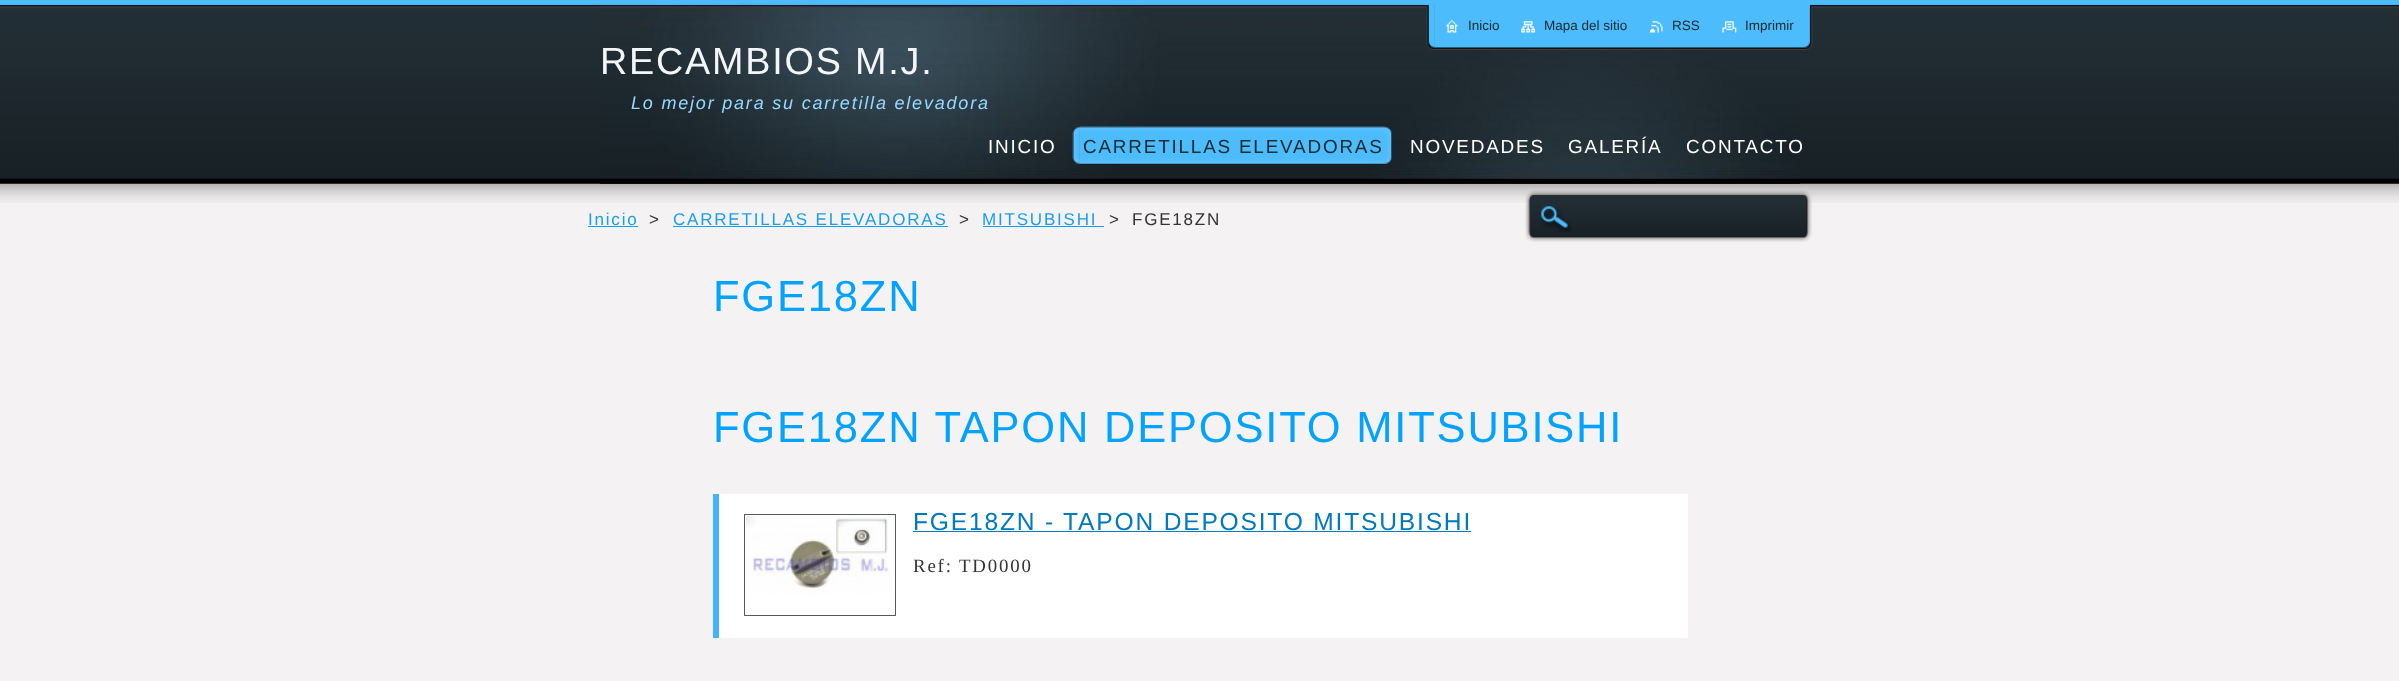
(async () => {
    const canvas = document.querySelector("canvas");
    canvas.width = 2399;
    canvas.height = 681;
    const context = canvas.getContext("2d");
    context.miterLimit = 4;
    context.fontKerning = "normal";
    function write(s, x, y, font, color) {
        context.font = font;
        context.fillStyle = color;
        context.fillText(s, x, y);
    }
    function block(x, y, w, h, color) {
        context.fillStyle = color;
        context.fillRect(x, y, w, h);
    }
    async function photo(src, x, y, w, h) {
        const img = new Image();
        img.src = src;
        await img.decode();
        context.drawImage(img, x, y, w, h);
    }

    block(0, 0, 2399, 681, "rgb(244, 242, 242)");
    await photo("media/1.png", 0, 0, 2399, 203);
    await photo("media/8.png", 600, 3, 1200, 181);
    await photo("media/2.png", 1426, 3, 9, 47);
    await photo("media/3.png", 1435, 3, 378, 47);
    await photo("media/4.png", 1446, 20, 12, 13);
    write("Inicio", 1468, 30, "13.5px Liberation Sans", "rgb(33, 44, 51)");
    await photo("media/5.png", 1521, 21, 14, 12);
    write("Mapa del sitio", 1544, 30, "13.5px Liberation Sans", "rgb(33, 44, 51)");
    await photo("media/6.png", 1650, 21, 13, 12);
    write("RSS", 1672, 30, "13.5px Liberation Sans", "rgb(33, 44, 51)");
    await photo("media/7.png", 1722, 21, 15, 12);
    write("Imprimir", 1745, 30, "13.5px Liberation Sans", "rgb(33, 44, 51)");
    context.letterSpacing = "1.8px";
    write("RECAMBIOS M.J.", 600, 74, "37.75px Liberation Sans", "rgb(243, 246, 249)");
    write("Lo mejor para su carretilla elevadora", 631, 109, "italic 18px Liberation Sans", "rgb(150, 217, 255)");
    write("INICIO", 988, 153, "18.9px Liberation Sans", "rgb(255, 255, 255)");
    await photo("media/9.png", 1072, 126, 9, 39);
    await photo("media/10.png", 1080, 126, 312, 39);
    write("CARRETILLAS ELEVADORAS", 1083, 153, "18.9px Liberation Sans", "rgb(33, 44, 51)");
    write("NOVEDADES", 1410, 153, "18.9px Liberation Sans", "rgb(255, 255, 255)");
    write("GALERÍA", 1568, 153, "18.9px Liberation Sans", "rgb(255, 255, 255)");
    write("CONTACTO", 1686, 153, "18.9px Liberation Sans", "rgb(255, 255, 255)");
    write("Inicio", 588, 225, "17px Liberation Sans", "rgb(26, 159, 235)");
    block(588, 226, 50, 1, "rgb(26, 159, 235)");
    write(">", 649, 225, "17px Liberation Sans", "rgb(53, 51, 51)");
    write("CARRETILLAS ELEVADORAS", 673, 225, "17px Liberation Sans", "rgb(26, 159, 235)");
    block(673, 226, 275, 1, "rgb(26, 159, 235)");
    write(">", 959, 225, "17px Liberation Sans", "rgb(53, 51, 51)");
    write("MITSUBISHI", 982, 225, "17px Liberation Sans", "rgb(26, 159, 235)");
    block(983, 226, 121, 1, "rgb(26, 159, 235)");
    write(">", 1109, 225, "17px Liberation Sans", "rgb(53, 51, 51)");
    write("FGE18ZN", 1132, 225, "17px Liberation Sans", "rgb(53, 51, 51)");
    await photo("media/11.png", 1525, 190, 287, 52);
    await photo("media/12.png", 1541, 206, 30, 26);
    write("FGE18ZN", 713, 311, "43.5px Liberation Sans", "rgb(1, 163, 255)");
    write("FGE18ZN TAPON DEPOSITO MITSUBISHI", 713, 442, "43.5px Liberation Sans", "rgb(1, 163, 255)");
    block(719, 494, 969, 144, "rgb(255, 255, 255)");
    block(713, 494, 6, 144, "rgb(66, 179, 252)");
    context.strokeStyle = "rgb(85, 90, 92)";
    context.strokeRect(744.5, 514.5, 151, 101);
    await photo("media/13.png", 746, 516, 144, 79);
    write("FGE18ZN - TAPON DEPOSITO MITSUBISHI", 913, 530, "24.6px Liberation Sans", "rgb(0, 121, 190)");
    block(913, 531, 558, 1, "rgb(0, 121, 190)");
    write("Ref: TD0000", 913, 572, "18.9px Liberation Serif", "rgb(53, 51, 51)");
})();
